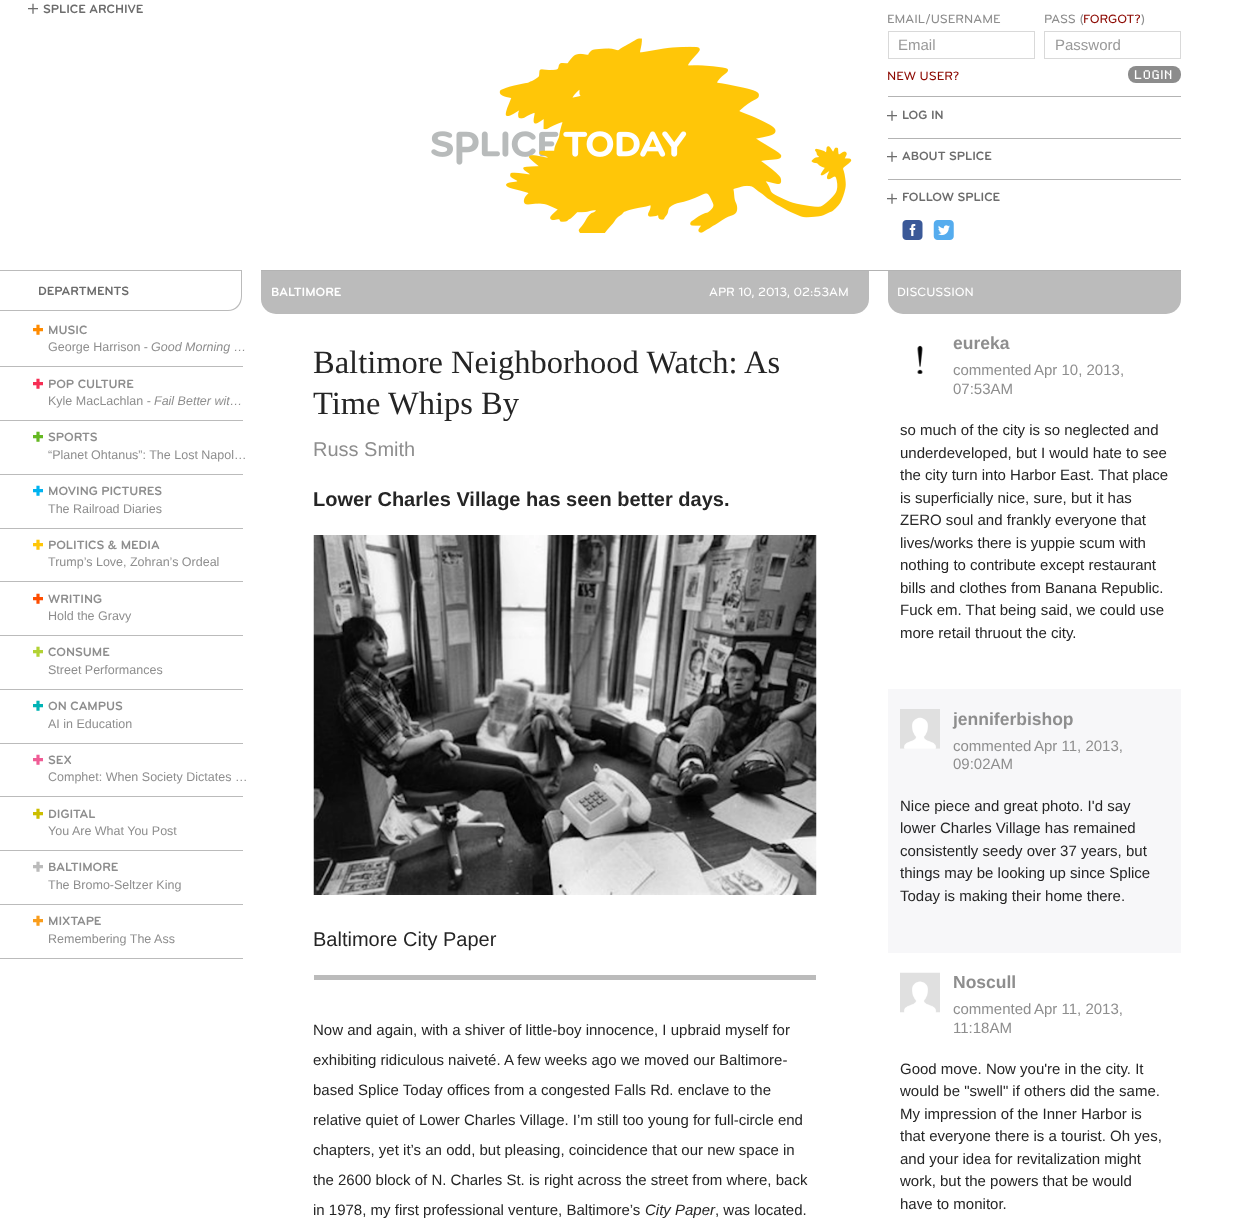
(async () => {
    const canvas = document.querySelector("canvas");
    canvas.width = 1233;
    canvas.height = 1226;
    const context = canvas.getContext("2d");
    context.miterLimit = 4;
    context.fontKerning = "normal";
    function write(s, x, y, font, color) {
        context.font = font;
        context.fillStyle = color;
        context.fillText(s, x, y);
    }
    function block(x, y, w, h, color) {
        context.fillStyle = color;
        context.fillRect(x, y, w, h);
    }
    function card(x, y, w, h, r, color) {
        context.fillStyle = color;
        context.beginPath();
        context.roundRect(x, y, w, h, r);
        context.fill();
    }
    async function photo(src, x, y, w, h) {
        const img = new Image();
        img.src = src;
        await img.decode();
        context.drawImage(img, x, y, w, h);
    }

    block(0, 0, 1233, 1226, "rgb(255, 255, 255)");
    write("✛", 28, 13, "10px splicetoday", "rgb(109, 109, 109)");
    write("SPLICE ARCHIVE", 43, 13, "bold 12.5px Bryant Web", "rgb(109, 109, 109)");
    await photo("media/1.png", 431, 38, 421, 195);
    write("EMAIL/USERNAME", 887, 23, "500 12.5px Bryant Web", "rgb(142, 142, 142)");
    context.strokeStyle = "rgb(217, 217, 217)";
    context.strokeRect(888.5, 31.5, 146, 27);
    write("Email", 898, 50, "15px Liberation Sans", "rgb(153, 153, 153)");
    write("NEW USER?", 887, 80, "500 12.5px Bryant Web", "rgb(140, 8, 1)");
    write("PASS (", 1044, 23, "500 12.5px Bryant Web", "rgb(142, 142, 142)");
    write("FORGOT?", 1083, 23, "500 12.5px Bryant Web", "rgb(140, 8, 1)");
    write(")", 1141, 23, "500 12.5px Bryant Web", "rgb(142, 142, 142)");
    context.strokeRect(1044.5, 31.5, 136, 27);
    write("Password", 1055, 50, "15px Liberation Sans", "rgb(153, 153, 153)");
    card(1128, 66, 53, 17, 8, "rgb(140, 140, 140)");
    write("LOGIN", 1135, 79, "10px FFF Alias", "rgb(255, 255, 255)");
    block(888, 96, 293, 1, "rgb(179, 179, 179)");
    write("✛", 887, 120, "10px splicetoday", "rgb(109, 109, 109)");
    write("LOG IN", 902, 119, "bold 12.5px Bryant Web", "rgb(109, 109, 109)");
    block(888, 138, 293, 1, "rgb(179, 179, 179)");
    write("✛", 887, 161, "10px splicetoday", "rgb(109, 109, 109)");
    write("ABOUT SPLICE", 902, 160, "bold 12.5px Bryant Web", "rgb(109, 109, 109)");
    block(888, 179, 293, 1, "rgb(179, 179, 179)");
    write("✛", 887, 203, "10px splicetoday", "rgb(109, 109, 109)");
    write("FOLLOW SPLICE", 902, 201, "bold 12.5px Bryant Web", "rgb(109, 109, 109)");
    await photo("media/2.png", 902, 220, 21, 20);
    await photo("media/3.png", 933, 220, 21, 20);
    context.fillStyle = "rgb(187, 187, 187)";
    context.beginPath();
    context.moveTo(0, 270);
    context.lineTo(242, 270);
    context.lineTo(242, 296);
    context.bezierCurveTo(242, 305, 236, 311, 228, 311);
    context.lineTo(0, 311);
    context.closePath();
    context.moveTo(0, 271);
    context.lineTo(241, 271);
    context.lineTo(241, 296);
    context.bezierCurveTo(241, 304, 235, 310, 228, 310);
    context.lineTo(0, 310);
    context.closePath();
    context.fill("evenodd");
    write("DEPARTMENTS", 38, 295, "bold 12.5px Bryant Web", "rgb(109, 109, 109)");
    block(0, 366, 243, 1, "rgb(187, 187, 187)");
    write("✚", 33, 334, "10px splicetoday", "rgb(255, 139, 0)");
    write("MUSIC", 48, 334, "bold 12.5px Bryant Web", "rgb(142, 142, 142)");
    write("George Harrison -", 48, 351, "12.5px Liberation Sans", "rgb(142, 142, 142)");
    write("Good Morning …", 151, 351, "italic 12.5px Liberation Sans", "rgb(142, 142, 142)");
    block(0, 420, 243, 1, "rgb(187, 187, 187)");
    write("✚", 33, 388, "10px splicetoday", "rgb(246, 46, 84)");
    write("POP CULTURE", 48, 388, "bold 12.5px Bryant Web", "rgb(142, 142, 142)");
    write("Kyle MacLachlan -", 48, 405, "12.5px Liberation Sans", "rgb(142, 142, 142)");
    write("Fail Better wit…", 154, 405, "italic 12.5px Liberation Sans", "rgb(142, 142, 142)");
    block(0, 474, 243, 1, "rgb(187, 187, 187)");
    write("✚", 33, 441, "10px splicetoday", "rgb(101, 184, 34)");
    write("SPORTS", 48, 441, "bold 12.5px Bryant Web", "rgb(142, 142, 142)");
    write("“Planet Ohtanus”: The Lost Napol…", 48, 459, "12.5px Liberation Sans", "rgb(142, 142, 142)");
    block(0, 528, 243, 1, "rgb(187, 187, 187)");
    write("✚", 33, 495, "10px splicetoday", "rgb(0, 179, 240)");
    write("MOVING PICTURES", 48, 495, "bold 12.5px Bryant Web", "rgb(142, 142, 142)");
    write("The Railroad Diaries", 48, 513, "12.5px Liberation Sans", "rgb(142, 142, 142)");
    block(0, 581, 243, 1, "rgb(187, 187, 187)");
    write("✚", 33, 549, "10px splicetoday", "rgb(255, 198, 8)");
    write("POLITICS & MEDIA", 48, 549, "bold 12.5px Bryant Web", "rgb(142, 142, 142)");
    write("Trump’s Love, Zohran’s Ordeal", 48, 566, "12.5px Liberation Sans", "rgb(142, 142, 142)");
    block(0, 635, 243, 1, "rgb(187, 187, 187)");
    write("✚", 33, 603, "10px splicetoday", "rgb(254, 77, 0)");
    write("WRITING", 48, 603, "bold 12.5px Bryant Web", "rgb(142, 142, 142)");
    write("Hold the Gravy", 48, 620, "12.5px Liberation Sans", "rgb(142, 142, 142)");
    block(0, 689, 243, 1, "rgb(187, 187, 187)");
    write("✚", 33, 656, "10px splicetoday", "rgb(178, 210, 52)");
    write("CONSUME", 48, 656, "bold 12.5px Bryant Web", "rgb(142, 142, 142)");
    write("Street Performances", 48, 674, "12.5px Liberation Sans", "rgb(142, 142, 142)");
    block(0, 743, 243, 1, "rgb(187, 187, 187)");
    write("✚", 33, 710, "10px splicetoday", "rgb(0, 179, 181)");
    write("ON CAMPUS", 48, 710, "bold 12.5px Bryant Web", "rgb(142, 142, 142)");
    write("AI in Education", 48, 728, "12.5px Liberation Sans", "rgb(142, 142, 142)");
    block(0, 796, 243, 1, "rgb(187, 187, 187)");
    write("✚", 33, 764, "10px splicetoday", "rgb(239, 92, 149)");
    write("SEX", 48, 764, "bold 12.5px Bryant Web", "rgb(142, 142, 142)");
    write("Comphet: When Society Dictates …", 48, 781, "12.5px Liberation Sans", "rgb(142, 142, 142)");
    block(0, 850, 243, 1, "rgb(187, 187, 187)");
    write("✚", 33, 818, "10px splicetoday", "rgb(204, 190, 0)");
    write("DIGITAL", 48, 818, "bold 12.5px Bryant Web", "rgb(142, 142, 142)");
    write("You Are What You Post", 48, 835, "12.5px Liberation Sans", "rgb(142, 142, 142)");
    block(0, 904, 243, 1, "rgb(187, 187, 187)");
    write("✚", 33, 871, "10px splicetoday", "rgb(187, 187, 187)");
    write("BALTIMORE", 48, 871, "bold 12.5px Bryant Web", "rgb(142, 142, 142)");
    write("The Bromo-Seltzer King", 48, 889, "12.5px Liberation Sans", "rgb(142, 142, 142)");
    block(0, 958, 243, 1, "rgb(187, 187, 187)");
    write("✚", 33, 925, "10px splicetoday", "rgb(249, 157, 28)");
    write("MIXTAPE", 48, 925, "bold 12.5px Bryant Web", "rgb(142, 142, 142)");
    write("Remembering The Ass", 48, 943, "12.5px Liberation Sans", "rgb(142, 142, 142)");
    block(261, 270, 920, 1, "rgb(179, 179, 179)");
    context.fillStyle = "rgb(187, 187, 187)";
    context.beginPath();
    context.roundRect(261, 271, 608, 43, [0, 0, 15, 15]);
    context.fill();
    write("BALTIMORE", 271, 296, "bold 12.5px Bryant Web", "rgb(255, 255, 255)");
    write("APR 10, 2013, 02:53AM", 709, 296, "500 12.5px Bryant Web", "rgb(255, 255, 255)");
    write("Baltimore Neighborhood Watch: As", 313, 373, "32.5px Liberation Serif", "rgb(37, 37, 37)");
    write("Time Whips By", 313, 414, "32.5px Liberation Serif", "rgb(37, 37, 37)");
    write("Russ Smith", 313, 456, "20px Liberation Sans", "rgb(142, 142, 142)");
    write("Lower Charles Village has seen better days.", 313, 506, "bold 20px Liberation Sans", "rgb(37, 37, 37)");
    await photo("media/4.png", 313, 535, 504, 360);
    write("Baltimore City Paper", 313, 946, "20px Liberation Sans", "rgb(37, 37, 37)");
    block(314, 975, 502, 5, "rgb(187, 187, 187)");
    write("Now and again, with a shiver of little-boy innocence, I upbraid myself for", 313, 1035, "15px Liberation Sans", "rgb(37, 37, 37)");
    write("exhibiting ridiculous naiveté. A few weeks ago we moved our Baltimore-", 313, 1065, "15px Liberation Sans", "rgb(37, 37, 37)");
    write("based Splice Today offices from a congested Falls Rd. enclave to the", 313, 1095, "15px Liberation Sans", "rgb(37, 37, 37)");
    write("relative quiet of Lower Charles Village. I’m still too young for full-circle end", 313, 1125, "15px Liberation Sans", "rgb(37, 37, 37)");
    write("chapters, yet it’s an odd, but pleasing, coincidence that our new space in", 313, 1155, "15px Liberation Sans", "rgb(37, 37, 37)");
    write("the 2600 block of N. Charles St. is right across the street from where, back", 313, 1185, "15px Liberation Sans", "rgb(37, 37, 37)");
    write("in 1978, my first professional venture, Baltimore’s", 313, 1215, "15px Liberation Sans", "rgb(37, 37, 37)");
    write("City Paper", 645, 1215, "italic 15px Liberation Sans", "rgb(37, 37, 37)");
    write(", was located.", 715, 1215, "15px Liberation Sans", "rgb(37, 37, 37)");
    context.fillStyle = "rgb(187, 187, 187)";
    context.beginPath();
    context.roundRect(888, 271, 293, 43, [0, 0, 15, 15]);
    context.fill();
    write("DISCUSSION", 897, 296, "500 12.5px Bryant Web", "rgb(255, 255, 255)");
    await photo("media/5.png", 917, 345, 6, 29);
    write("eureka", 953, 349, "bold 17.5px Liberation Sans", "rgb(142, 142, 142)");
    write("commented", 953, 375, "15px Liberation Sans", "rgb(142, 142, 142)");
    write("Apr 10, 2013,", 1034, 375, "15px Liberation Sans", "rgb(142, 142, 142)");
    write("07:53AM", 953, 394, "15px Liberation Sans", "rgb(142, 142, 142)");
    write("so much of the city is so neglected and", 900, 435, "15px Liberation Sans", "rgb(37, 37, 37)");
    write("underdeveloped, but I would hate to see", 900, 458, "15px Liberation Sans", "rgb(37, 37, 37)");
    write("the city turn into Harbor East. That place", 900, 480, "15px Liberation Sans", "rgb(37, 37, 37)");
    write("is superficially nice, sure, but it has", 900, 503, "15px Liberation Sans", "rgb(37, 37, 37)");
    write("ZERO soul and frankly everyone that", 900, 525, "15px Liberation Sans", "rgb(37, 37, 37)");
    write("lives/works there is yuppie scum with", 900, 548, "15px Liberation Sans", "rgb(37, 37, 37)");
    write("nothing to contribute except restaurant", 900, 570, "15px Liberation Sans", "rgb(37, 37, 37)");
    write("bills and clothes from Banana Republic.", 900, 593, "15px Liberation Sans", "rgb(37, 37, 37)");
    write("Fuck em. That being said, we could use", 900, 615, "15px Liberation Sans", "rgb(37, 37, 37)");
    write("more retail thruout the city.", 900, 638, "15px Liberation Sans", "rgb(37, 37, 37)");
    block(888, 689, 293, 264, "rgb(247, 247, 249)");
    await photo("media/6.png", 900, 709, 40, 40);
    write("jenniferbishop", 953, 725, "bold 17.5px Liberation Sans", "rgb(142, 142, 142)");
    write("commented", 953, 751, "15px Liberation Sans", "rgb(142, 142, 142)");
    write("Apr 11, 2013,", 1034, 751, "15px Liberation Sans", "rgb(142, 142, 142)");
    write("09:02AM", 953, 769, "15px Liberation Sans", "rgb(142, 142, 142)");
    write("Nice piece and great photo. I'd say", 900, 811, "15px Liberation Sans", "rgb(37, 37, 37)");
    write("lower Charles Village has remained", 900, 833, "15px Liberation Sans", "rgb(37, 37, 37)");
    write("consistently seedy over 37 years, but", 900, 856, "15px Liberation Sans", "rgb(37, 37, 37)");
    write("things may be looking up since Splice", 900, 878, "15px Liberation Sans", "rgb(37, 37, 37)");
    write("Today is making their home there.", 900, 901, "15px Liberation Sans", "rgb(37, 37, 37)");
    await photo("media/7.png", 900, 972, 40, 41);
    write("Noscull", 953, 988, "bold 17.5px Liberation Sans", "rgb(142, 142, 142)");
    write("commented", 953, 1014, "15px Liberation Sans", "rgb(142, 142, 142)");
    write("Apr 11, 2013,", 1034, 1014, "15px Liberation Sans", "rgb(142, 142, 142)");
    write("11:18AM", 953, 1033, "15px Liberation Sans", "rgb(142, 142, 142)");
    write("Good move. Now you're in the city. It", 900, 1074, "15px Liberation Sans", "rgb(37, 37, 37)");
    write("would be \"swell\" if others did the same.", 900, 1096, "15px Liberation Sans", "rgb(37, 37, 37)");
    write("My impression of the Inner Harbor is", 900, 1119, "15px Liberation Sans", "rgb(37, 37, 37)");
    write("that everyone there is a tourist. Oh yes,", 900, 1141, "15px Liberation Sans", "rgb(37, 37, 37)");
    write("and your idea for revitalization might", 900, 1164, "15px Liberation Sans", "rgb(37, 37, 37)");
    write("work, but the powers that be would", 900, 1186, "15px Liberation Sans", "rgb(37, 37, 37)");
    write("have to monitor.", 900, 1209, "15px Liberation Sans", "rgb(37, 37, 37)");
})();
